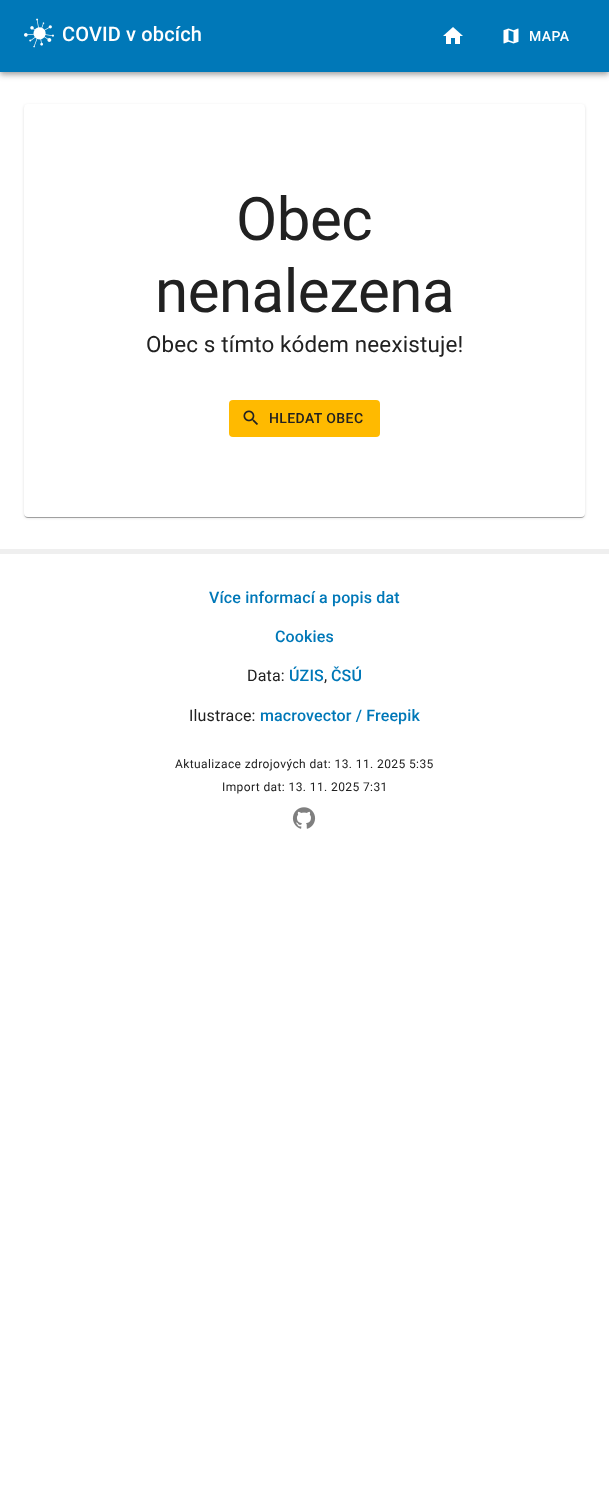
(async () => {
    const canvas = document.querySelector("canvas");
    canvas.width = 609;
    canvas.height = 1497;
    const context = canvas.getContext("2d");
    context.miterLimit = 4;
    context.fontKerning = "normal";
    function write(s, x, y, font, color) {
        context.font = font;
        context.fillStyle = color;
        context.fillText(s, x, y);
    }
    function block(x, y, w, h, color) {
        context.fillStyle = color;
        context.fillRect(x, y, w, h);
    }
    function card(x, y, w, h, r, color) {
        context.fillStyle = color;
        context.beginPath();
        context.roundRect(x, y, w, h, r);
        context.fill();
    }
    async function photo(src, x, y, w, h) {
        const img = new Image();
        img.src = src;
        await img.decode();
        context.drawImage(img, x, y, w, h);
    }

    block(0, 0, 609, 1497, "rgb(255, 255, 255)");
    context.fillStyle = "rgba(0, 0, 0, 0.12)";
    context.filter = "blur(5px)";
    context.beginPath();
    context.rect(0, 1, 609, 72);
    context.fill();
    context.filter = "none";
    context.fillStyle = "rgba(0, 0, 0, 0.14)";
    context.filter = "blur(2.5px)";
    context.beginPath();
    context.rect(0, 4, 609, 72);
    context.fill();
    context.filter = "none";
    context.fillStyle = "rgba(0, 0, 0, 0.2)";
    context.filter = "blur(2px)";
    context.beginPath();
    context.rect(1, 3, 607, 70);
    context.fill();
    context.filter = "none";
    block(0, 0, 609, 72, "rgb(0, 120, 184)");
    await photo("media/1.png", 24, 18, 30, 30);
    context.letterSpacing = "0.15px";
    write("COVID v obcích", 62, 41, "500 20px Roboto", "rgb(255, 255, 255)");
    await photo("media/2.png", 443, 27, 20, 17);
    await photo("media/3.png", 503, 28, 16, 16);
    context.letterSpacing = "0.4px";
    write("MAPA", 529, 41, "500 14px Roboto", "rgb(255, 255, 255)");
    context.fillStyle = "rgba(0, 0, 0, 0.12)";
    context.filter = "blur(1.5px)";
    context.beginPath();
    context.roundRect(24, 105, 561, 413, 4);
    context.fill();
    context.filter = "none";
    context.fillStyle = "rgba(0, 0, 0, 0.14)";
    context.filter = "blur(0.5px)";
    context.beginPath();
    context.roundRect(24, 105, 561, 413, 4);
    context.fill();
    context.filter = "none";
    context.fillStyle = "rgba(0, 0, 0, 0.2)";
    context.filter = "blur(0.5px)";
    context.beginPath();
    context.roundRect(25, 107, 559, 411, 3);
    context.fill();
    context.filter = "none";
    card(24, 104, 561, 413, 4, "rgb(255, 255, 255)");
    context.letterSpacing = "-0.5px";
    write("Obec", 236, 240, "60px Roboto", "rgb(33, 33, 33)");
    write("nenalezena", 155, 312, "60px Roboto", "rgb(33, 33, 33)");
    context.letterSpacing = "0.15px";
    write("Obec s tímto kódem neexistuje!", 146, 352, "22.4px Roboto", "rgb(33, 33, 33)");
    card(229, 400, 151, 37, 4, "rgb(255, 186, 0)");
    await photo("media/4.png", 243, 410, 15, 15);
    context.letterSpacing = "0.4px";
    write("HLEDAT OBEC", 269, 423, "500 14px Roboto", "rgb(33, 33, 33)");
    block(0, 549, 609, 5, "rgb(239, 239, 239)");
    context.letterSpacing = "0.15px";
    write("Více informací a popis dat", 209, 603, "500 16px Roboto", "rgb(0, 120, 184)");
    write("Cookies", 275, 642, "500 16px Roboto", "rgb(0, 120, 184)");
    write("Data:", 247, 681, "16px Roboto", "rgb(33, 33, 33)");
    write("ÚZIS", 289, 681, "500 16px Roboto", "rgb(0, 120, 184)");
    write(",", 324, 681, "16px Roboto", "rgb(33, 33, 33)");
    write("ČSÚ", 331, 681, "500 16px Roboto", "rgb(0, 120, 184)");
    write("Ilustrace:", 189, 721, "16px Roboto", "rgb(33, 33, 33)");
    write("macrovector / Freepik", 260, 721, "500 16px Roboto", "rgb(0, 120, 184)");
    context.letterSpacing = "0.4px";
    write("Aktualizace zdrojových dat: 13. 11. 2025 5:35", 175, 768, "12px Roboto", "rgb(33, 33, 33)");
    write("Import dat: 13. 11. 2025 7:31", 222, 791, "12px Roboto", "rgb(33, 33, 33)");
    await photo("media/5.png", 292, 807, 24, 22);
})();
